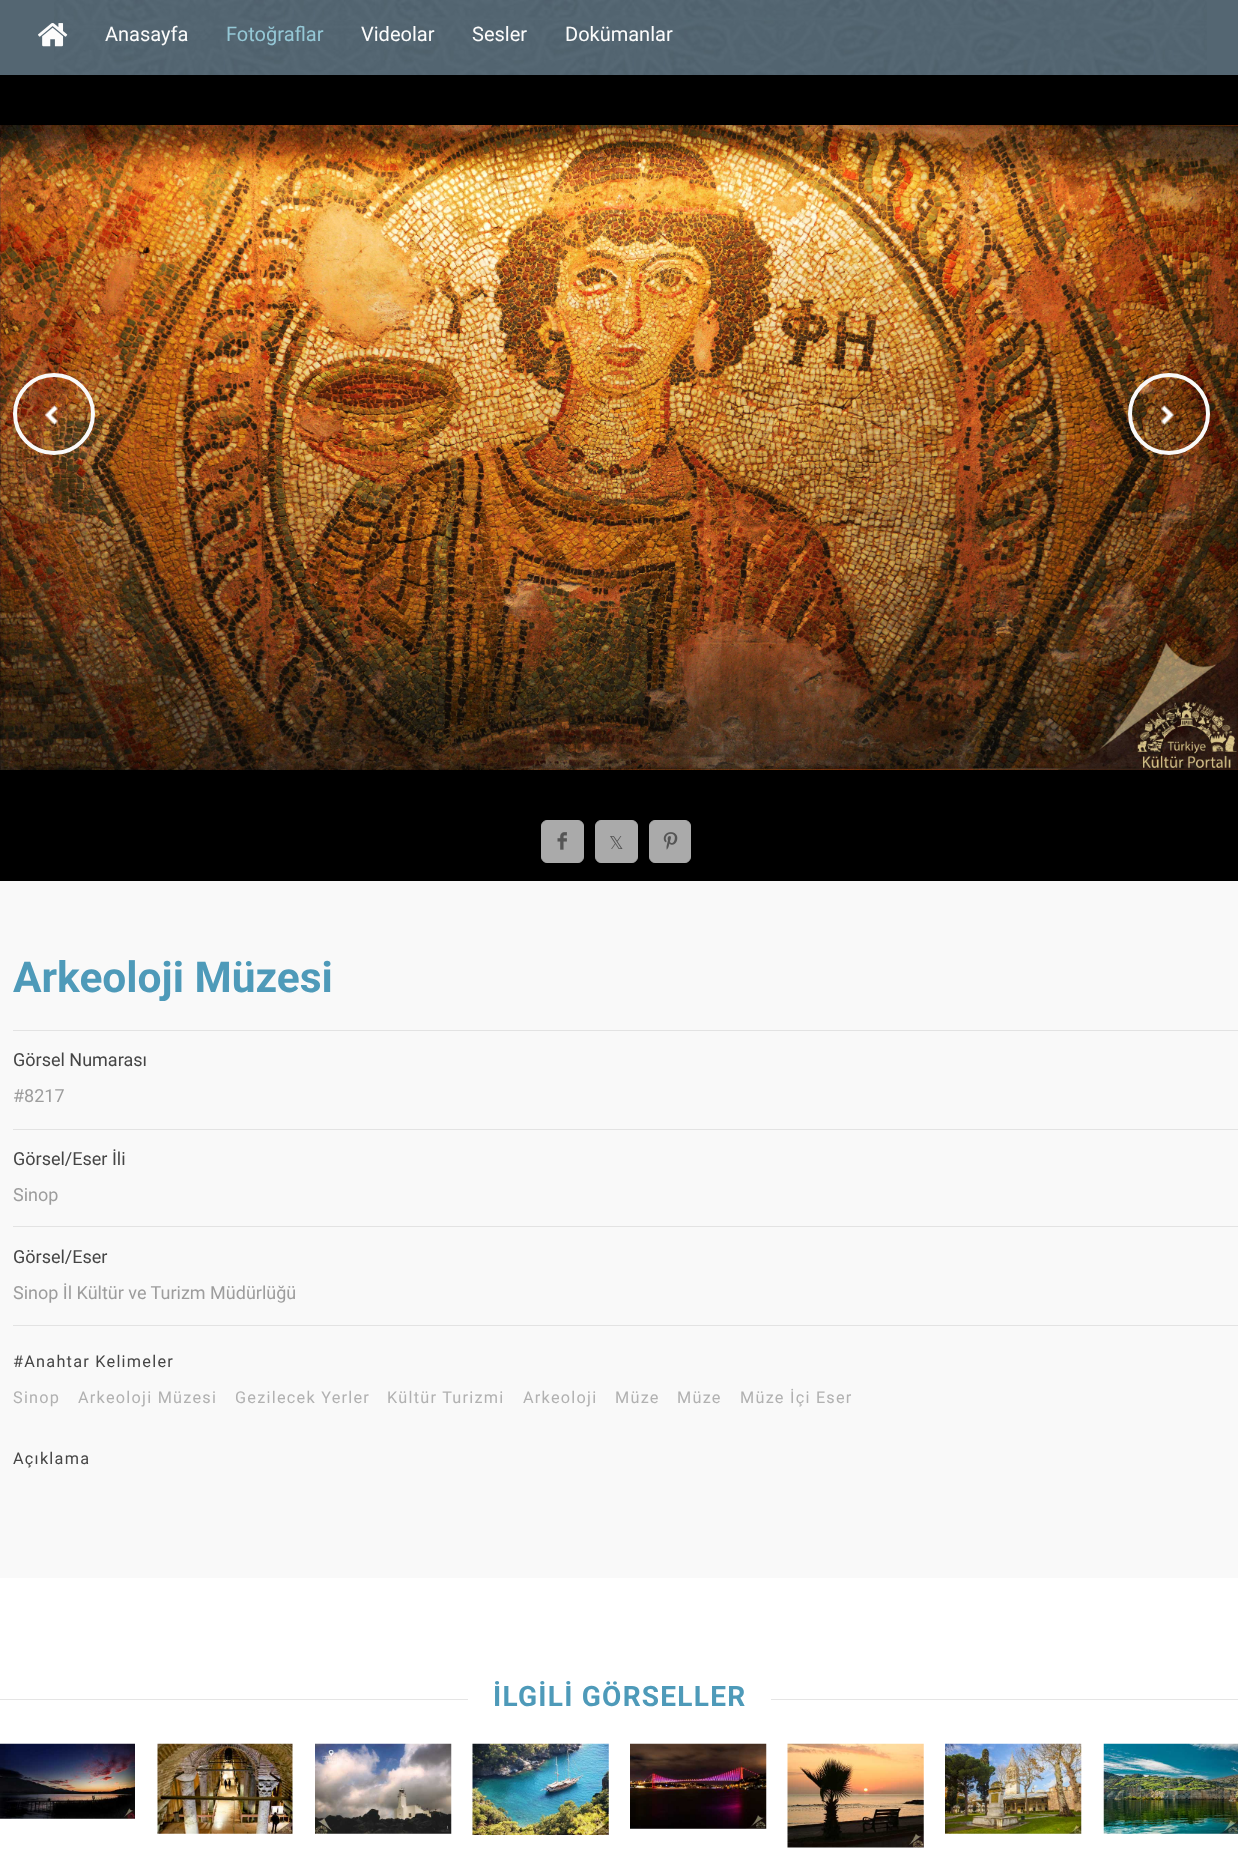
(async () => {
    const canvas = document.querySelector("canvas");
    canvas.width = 1238;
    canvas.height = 1876;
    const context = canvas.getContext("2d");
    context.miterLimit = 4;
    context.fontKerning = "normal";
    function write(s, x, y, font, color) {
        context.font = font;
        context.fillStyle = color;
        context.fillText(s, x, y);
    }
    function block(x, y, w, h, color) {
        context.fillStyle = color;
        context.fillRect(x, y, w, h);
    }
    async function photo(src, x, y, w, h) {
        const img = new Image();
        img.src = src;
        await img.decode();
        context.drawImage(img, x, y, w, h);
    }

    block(0, 0, 1238, 1876, "rgb(255, 255, 255)");
    block(0, 0, 1238, 75, "rgb(84, 102, 114)");
    await photo("media/1.png", 54, 0, 1153, 75);
    await photo("media/2.png", 38, 23, 30, 24);
    write("Anasayfa", 105, 41, "20px Roboto", "rgb(252, 252, 252)");
    write("Fotoğraflar", 226, 41, "20px Roboto", "rgb(149, 200, 214)");
    write("Videolar", 361, 41, "20px Roboto", "rgb(252, 252, 252)");
    write("Sesler", 472, 41, "20px Roboto", "rgb(252, 252, 252)");
    write("Dokümanlar", 565, 41, "20px Roboto", "rgb(252, 252, 252)");
    block(0, 881, 1238, 697, "rgb(249, 249, 249)");
    block(0, 75, 1238, 806, "rgb(0, 0, 0)");
    await photo("media/3.png", 0, 125, 1238, 645);
    await photo("media/4.png", 45, 405, 13, 20);
    context.beginPath();
    context.arc(54, 414, 39, 0, Math.PI * 2);
    context.strokeStyle = "rgb(249, 249, 249)";
    context.lineWidth = 4;
    context.stroke();
    await photo("media/5.png", 1161, 405, 13, 20);
    context.beginPath();
    context.arc(1169, 414, 39, 0, Math.PI * 2);
    context.stroke();
    context.fillStyle = "rgb(170, 170, 170)";
    context.beginPath();
    context.roundRect(541.5, 820.5, 42, 42, 5.5);
    context.fill();
    context.strokeStyle = "rgb(170, 170, 170)";
    context.lineWidth = 1;
    context.stroke();
    await photo("media/6.png", 557, 832, 10, 18);
    context.beginPath();
    context.roundRect(595.5, 820.5, 42, 42, 5.5);
    context.fill();
    context.stroke();
    write("𝕏", 609, 849, "18px DejaVu Sans", "rgb(85, 85, 85)");
    context.fillStyle = "rgb(170, 170, 170)";
    context.beginPath();
    context.roundRect(649.5, 820.5, 41, 42, 5.5);
    context.fill();
    context.stroke();
    await photo("media/7.png", 663, 832, 15, 18);
    write("Arkeoloji Müzesi", 13, 992, "bold 42.5px Roboto", "rgb(78, 154, 185)");
    block(13, 1030, 1225, 1, "rgb(227, 227, 227)");
    block(13, 1129, 1225, 1, "rgb(227, 227, 227)");
    write("Görsel Numarası", 13, 1066, "18px Roboto", "rgb(69, 69, 69)");
    write("#8217", 13, 1102, "18px Roboto", "rgb(157, 157, 157)");
    block(13, 1226, 1225, 1, "rgb(227, 227, 227)");
    write("Görsel/Eser İli", 13, 1165, "18px Roboto", "rgb(69, 69, 69)");
    write("Sinop", 13, 1201, "18px Roboto", "rgb(157, 157, 157)");
    block(13, 1325, 1225, 1, "rgb(227, 227, 227)");
    write("Görsel/Eser", 13, 1263, "18px Roboto", "rgb(69, 69, 69)");
    write("Sinop İl Kültür ve Turizm Müdürlüğü", 13, 1299, "18px Roboto", "rgb(157, 157, 157)");
    context.letterSpacing = "1.25px";
    write("#Anahtar Kelimeler", 13, 1367, "16.25px Roboto", "rgb(69, 69, 69)");
    write("Sinop", 13, 1403, "16.25px Roboto", "rgb(177, 177, 177)");
    write("Arkeoloji Müzesi", 78, 1403, "16.25px Roboto", "rgb(177, 177, 177)");
    write("Gezilecek Yerler", 235, 1403, "16.25px Roboto", "rgb(177, 177, 177)");
    write("Kültür Turizmi", 387, 1403, "16.25px Roboto", "rgb(177, 177, 177)");
    write("Arkeoloji", 523, 1403, "16.25px Roboto", "rgb(177, 177, 177)");
    write("Müze", 615, 1403, "16.25px Roboto", "rgb(177, 177, 177)");
    write("Müze", 677, 1403, "16.25px Roboto", "rgb(177, 177, 177)");
    write("Müze İçi Eser", 740, 1403, "16.25px Roboto", "rgb(177, 177, 177)");
    write("Açıklama", 13, 1464, "16.25px Roboto", "rgb(69, 69, 69)");
    block(0, 1699, 1238, 1, "rgb(229, 229, 229)");
    block(468, 1699, 303, 1, "rgb(255, 255, 255)");
    write("İLGİLİ GÖRSELLER", 493, 1706, "bold 28px Roboto", "rgb(78, 154, 185)");
    await photo("media/8.png", 0, 1743, 135, 76);
    await photo("media/9.png", 157, 1743, 136, 91);
    await photo("media/10.png", 315, 1743, 137, 91);
    await photo("media/11.png", 472, 1743, 137, 92);
    await photo("media/12.png", 630, 1743, 137, 86);
    await photo("media/13.png", 787, 1743, 137, 105);
    await photo("media/14.png", 945, 1743, 137, 91);
    await photo("media/15.png", 1103, 1743, 135, 91);
})();
